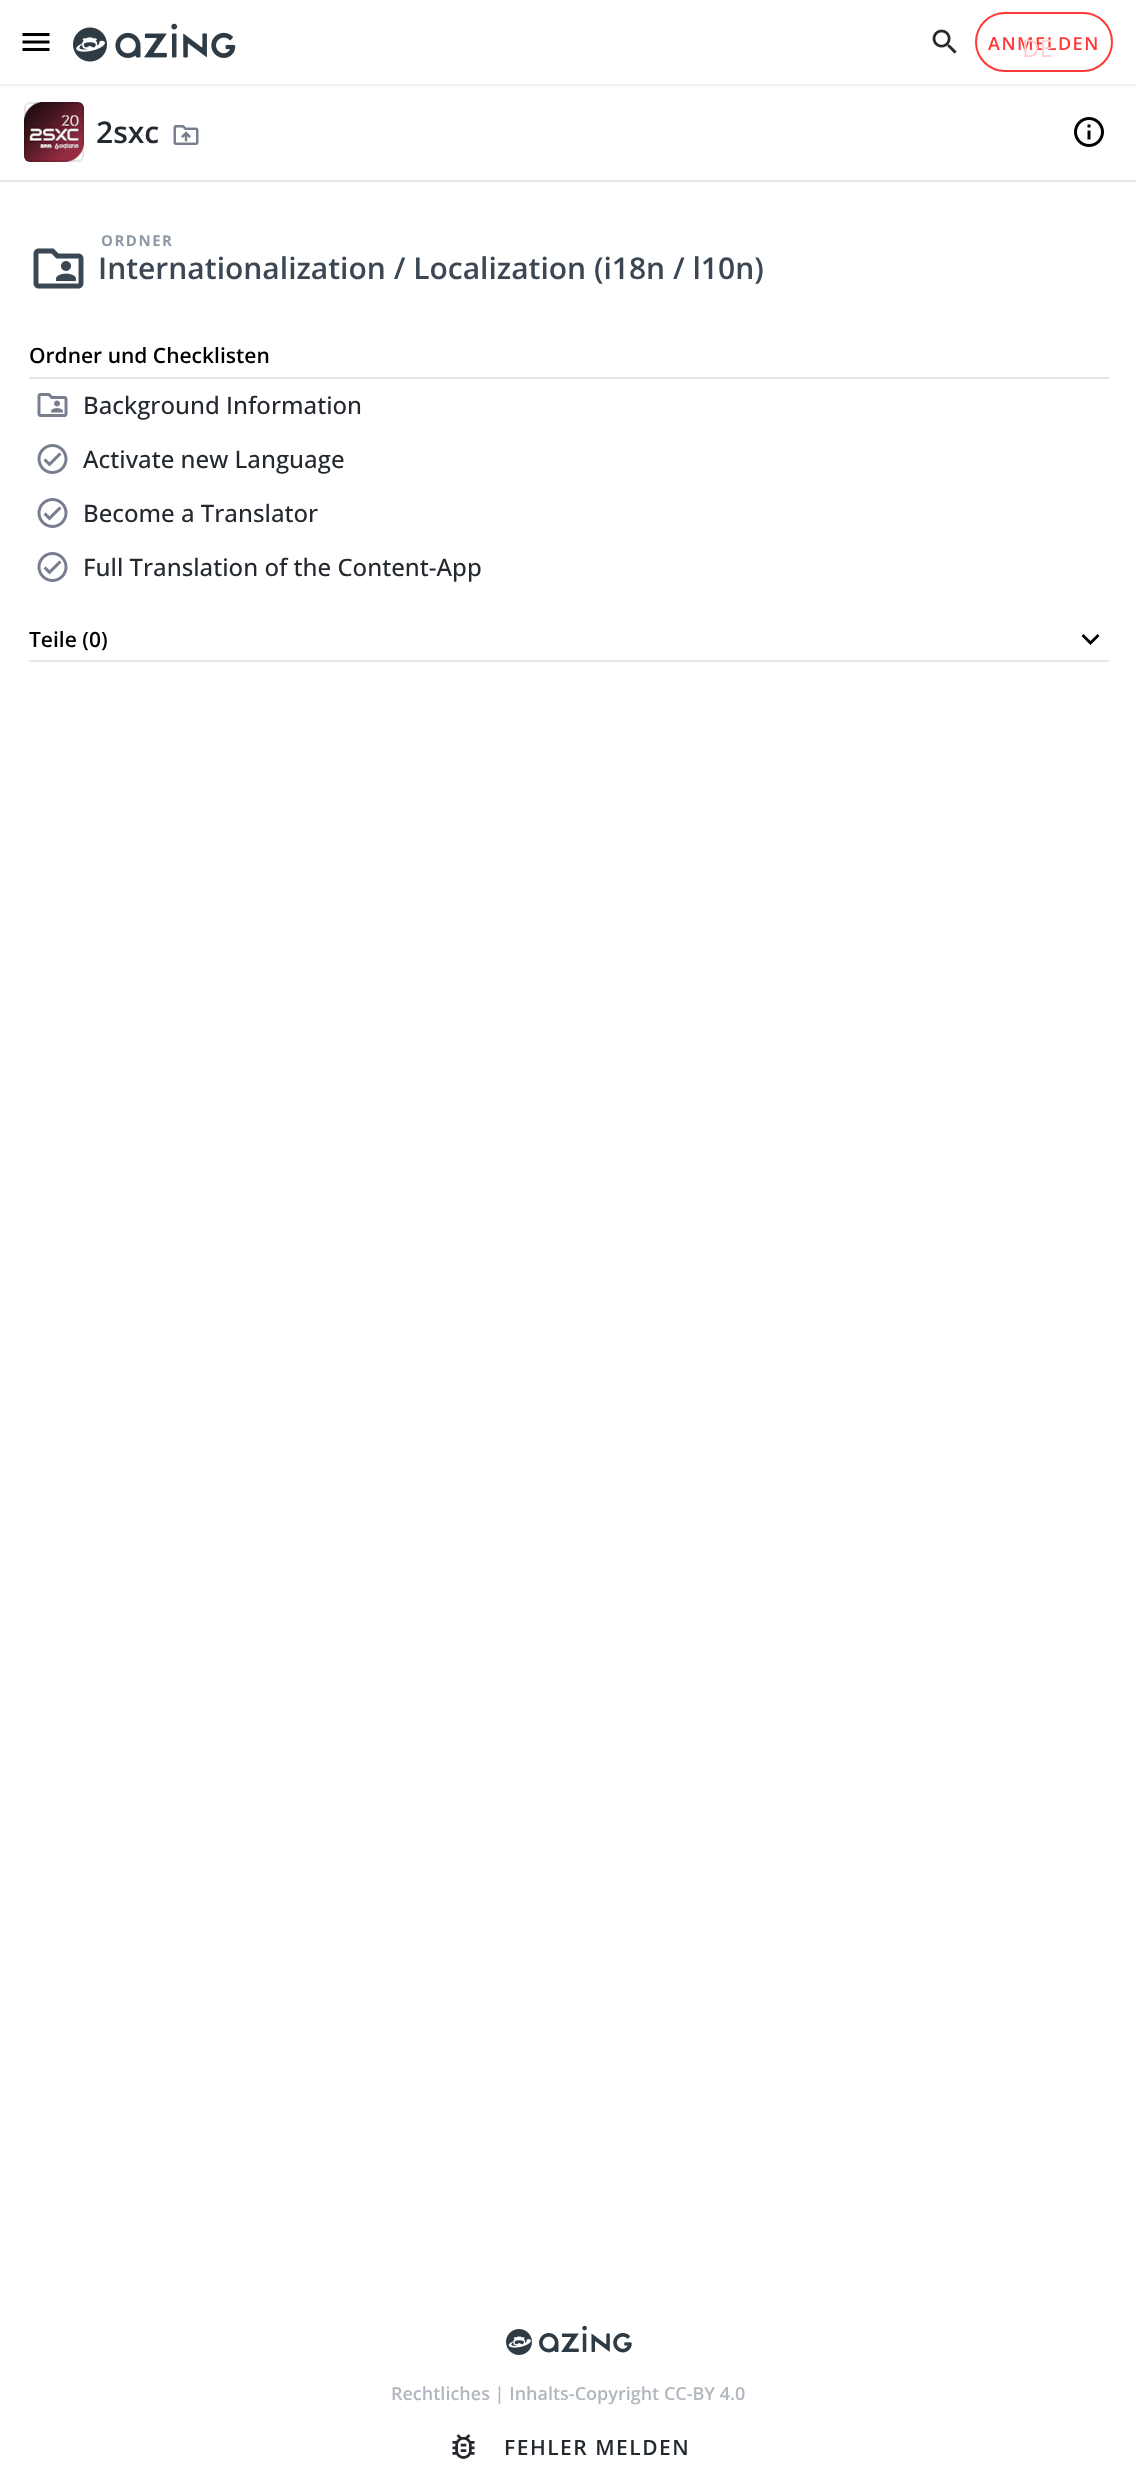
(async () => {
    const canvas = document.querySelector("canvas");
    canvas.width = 1136;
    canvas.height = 2486;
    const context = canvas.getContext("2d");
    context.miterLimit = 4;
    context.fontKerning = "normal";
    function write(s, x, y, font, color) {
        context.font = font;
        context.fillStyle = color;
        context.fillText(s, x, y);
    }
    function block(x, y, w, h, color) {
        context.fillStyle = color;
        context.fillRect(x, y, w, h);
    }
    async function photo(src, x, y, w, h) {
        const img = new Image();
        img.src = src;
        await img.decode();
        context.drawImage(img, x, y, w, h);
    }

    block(0, 0, 1136, 2486, "rgb(255, 255, 255)");
    context.save();
    context.beginPath();
    context.rect(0, 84, 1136, 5);
    context.clip();
    context.fillStyle = "rgb(237, 237, 237)";
    context.filter = "blur(1.5px)";
    context.beginPath();
    context.rect(0, 2, 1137, 84);
    context.fill();
    context.filter = "none";
    context.restore();
    await photo("media/1.png", 22, 33, 28, 18);
    await photo("media/2.png", 73, 23, 163, 39);
    await photo("media/3.png", 932, 29, 25, 25);
    context.beginPath();
    context.roundRect(976, 13, 136, 58, 29);
    context.strokeStyle = "rgb(255, 57, 57)";
    context.lineWidth = 2;
    context.stroke();
    context.letterSpacing = "1.5px";
    write("ANMELDEN", 988, 50, "600 18px Open Sans", "rgb(255, 57, 57)");
    context.letterSpacing = "0px";
    write("DE", 1022, 57, "24px Open Sans", "rgb(255, 208, 208)");
    block(0, 180, 1136, 2, "rgb(230, 230, 230)");
    await photo("media/4.png", 24, 102, 60, 60);
    context.beginPath();
    context.roundRect(25, 103, 58, 58, 5);
    context.strokeStyle = "rgba(0, 0, 0, 0.1)";
    context.stroke();
    write("2sxc", 96, 143, "600 30px Open Sans", "rgb(35, 41, 47)");
    await photo("media/5.png", 173, 125, 26, 20);
    await photo("media/6.png", 1074, 117, 30, 30);
    await photo("media/7.png", 33, 248, 51, 41);
    context.letterSpacing = "1.5px";
    write("ORDNER", 101, 246, "bold 15px Open Sans", "rgb(144, 154, 166)");
    context.letterSpacing = "0px";
    write("Internationalization / Localization (i18n / l10n)", 98, 279, "600 30px Open Sans", "rgb(59, 71, 83)");
    block(29, 377, 1080, 2, "rgb(230, 230, 230)");
    write("Ordner und Checklisten", 29, 363, "600 21px Open Sans", "rgb(0, 0, 0)");
    await photo("media/8.png", 37, 393, 31, 24);
    write("Background Information", 83, 414, "500 24px Open Sans", "rgb(35, 41, 47)");
    await photo("media/9.png", 37, 444, 31, 30);
    write("Activate new Language", 83, 468, "500 24px Open Sans", "rgb(35, 41, 47)");
    await photo("media/9.png", 37, 498, 31, 30);
    write("Become a Translator", 83, 522, "500 24px Open Sans", "rgb(35, 41, 47)");
    await photo("media/9.png", 37, 552, 31, 30);
    write("Full Translation of the Content-App", 83, 576, "500 24px Open Sans", "rgb(35, 41, 47)");
    block(29, 660, 1080, 2, "rgb(230, 230, 230)");
    write("Teile (0)", 29, 647, "600 21px Open Sans", "rgb(0, 0, 0)");
    context.beginPath();
    context.moveTo(1097.5, 634);
    context.lineTo(1090.5, 641);
    context.lineTo(1083.5, 634);
    context.lineTo(1081.5, 636);
    context.lineTo(1090.5, 645);
    context.lineTo(1099.5, 636);
    context.closePath();
    context.fill();
    await photo("media/10.png", 506, 2325, 126, 30);
    write("Rechtliches | Inhalts-Copyright CC-BY 4.0", 391, 2400, "600 18px Open Sans", "rgb(176, 183, 190)");
    await photo("media/11.png", 452, 2434, 23, 25);
    context.letterSpacing = "1.5px";
    write("FEHLER MELDEN", 504, 2455, "600 21px Open Sans", "rgb(35, 41, 47)");
})();
